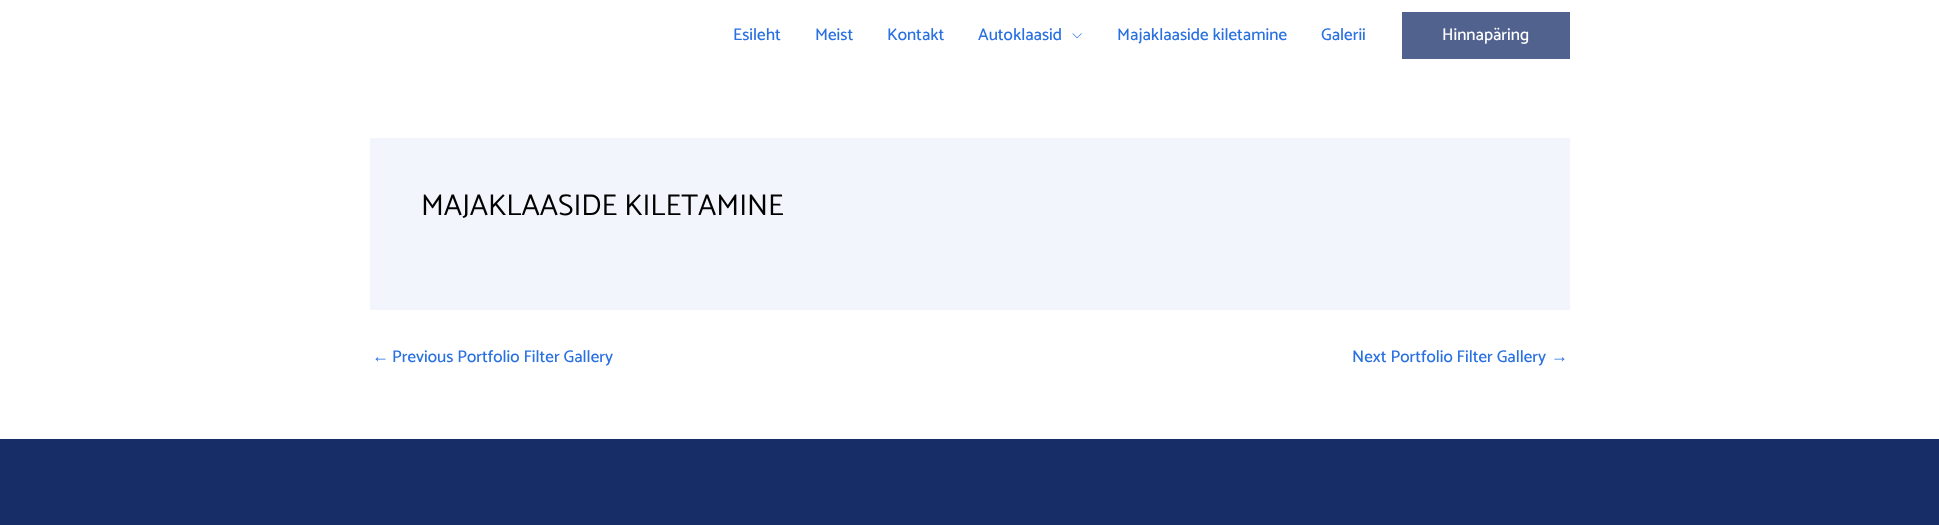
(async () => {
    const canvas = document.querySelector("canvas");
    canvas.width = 1939;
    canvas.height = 525;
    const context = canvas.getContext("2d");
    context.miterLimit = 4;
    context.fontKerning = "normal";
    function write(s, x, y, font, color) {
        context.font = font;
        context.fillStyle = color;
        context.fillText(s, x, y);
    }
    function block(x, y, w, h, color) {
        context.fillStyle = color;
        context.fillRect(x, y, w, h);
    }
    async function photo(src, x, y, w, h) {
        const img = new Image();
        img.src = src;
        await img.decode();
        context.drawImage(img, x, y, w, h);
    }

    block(0, 0, 1939, 525, "rgb(255, 255, 255)");
    write("Esileht", 733, 40, "500 17px Catamaran", "rgb(41, 112, 225)");
    write("Meist", 815, 40, "500 17px Catamaran", "rgb(41, 112, 225)");
    write("Kontakt", 887, 40, "500 17px Catamaran", "rgb(41, 112, 225)");
    write("Autoklaasid", 978, 40, "500 17px Catamaran", "rgb(41, 112, 225)");
    await photo("media/1.png", 1072, 33, 10, 6);
    write("Majaklaaside kiletamine", 1117, 40, "500 17px Catamaran", "rgb(41, 112, 225)");
    write("Galerii", 1321, 40, "500 17px Catamaran", "rgb(41, 112, 225)");
    block(1402, 12, 168, 47, "rgb(81, 98, 143)");
    write("Hinnapäring", 1442, 40, "500 17px Catamaran", "rgb(255, 255, 255)");
    block(370, 138, 1200, 172, "rgb(242, 245, 251)");
    write("MAJAKLAASIDE KILETAMINE", 421, 215, "30px Catamaran", "rgb(0, 0, 0)");
    write("←", 372, 362, "17px Liberation Sans", "rgb(41, 112, 225)");
    write("Previous Portfolio Filter Gallery", 392, 362, "500 17px Catamaran", "rgb(41, 112, 225)");
    write("Next Portfolio Filter Gallery", 1352, 362, "500 17px Catamaran", "rgb(41, 112, 225)");
    write("→", 1551, 362, "17px Liberation Sans", "rgb(41, 112, 225)");
    block(0, 439, 1939, 86, "rgb(23, 45, 104)");
})();
